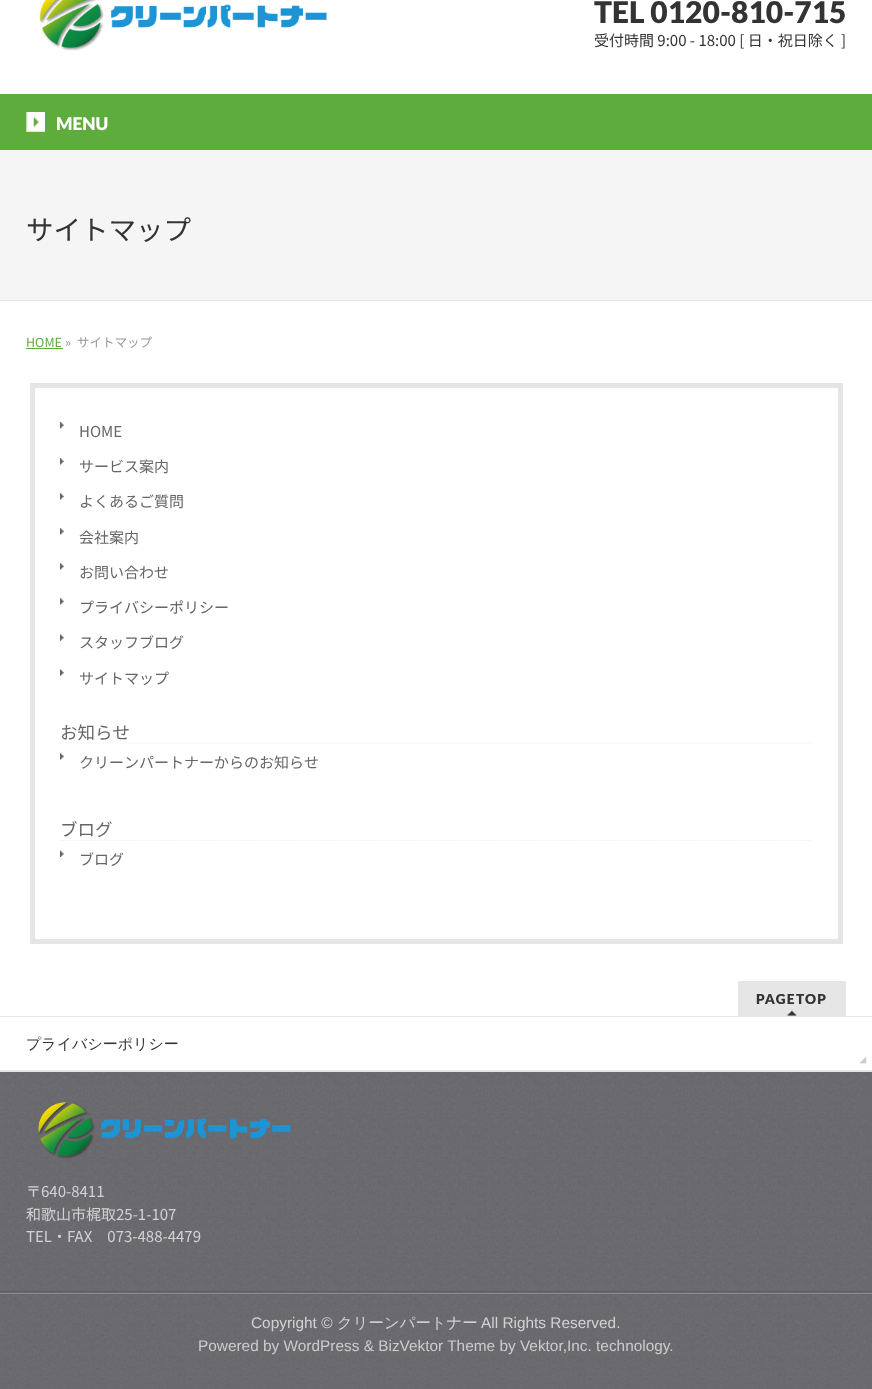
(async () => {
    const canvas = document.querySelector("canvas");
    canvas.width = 872;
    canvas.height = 1389;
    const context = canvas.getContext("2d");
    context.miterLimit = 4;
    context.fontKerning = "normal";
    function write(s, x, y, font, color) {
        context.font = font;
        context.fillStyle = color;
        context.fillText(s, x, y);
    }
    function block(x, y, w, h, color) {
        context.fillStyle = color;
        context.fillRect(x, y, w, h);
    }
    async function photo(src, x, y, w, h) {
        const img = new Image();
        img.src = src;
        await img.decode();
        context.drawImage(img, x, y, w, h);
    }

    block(0, 0, 872, 1389, "rgb(255, 255, 255)");
    await photo("media/1.png", 39, 0, 288, 51);
    write("TEL 0120-810-715", 594, 23, "900 30px Lato", "rgb(51, 51, 51)");
    write("受付時間 9:00 - 18:00 [ 日・祝日除く ]", 594, 46, "15px Noto Sans JP", "rgb(51, 51, 51)");
    block(0, 94, 872, 56, "rgb(94, 173, 60)");
    await photo("media/2.png", 26, 112, 19, 20);
    write("MENU", 56, 130, "900 17.5px Lato", "rgb(255, 255, 255)");
    block(0, 150, 872, 150, "rgb(245, 245, 245)");
    block(0, 300, 872, 1, "rgb(229, 229, 229)");
    write("サイトマップ", 26, 240, "27.5px Noto Sans JP", "rgb(51, 51, 51)");
    write("HOME", 26, 347, "12.5px Noto Sans JP", "rgb(94, 173, 60)");
    block(26, 348, 37, 1, "rgb(94, 173, 60)");
    write("»", 65, 347, "12.5px Noto Sans JP", "rgb(153, 153, 153)");
    write("サイトマップ", 77, 347, "12.5px Noto Sans JP", "rgb(153, 153, 153)");
    context.strokeStyle = "rgb(229, 229, 229)";
    context.lineWidth = 5;
    context.strokeRect(32.5, 385.5, 808, 556);
    await photo("media/3.png", 60, 422, 4, 7);
    write("HOME", 79, 437, "15px Noto Sans JP", "rgb(102, 102, 102)");
    await photo("media/4.png", 60, 458, 4, 7);
    write("サービス案内", 79, 472, "15px Noto Sans JP", "rgb(102, 102, 102)");
    await photo("media/4.png", 60, 493, 4, 7);
    write("よくあるご質問", 79, 507, "15px Noto Sans JP", "rgb(102, 102, 102)");
    await photo("media/4.png", 60, 528, 4, 7);
    write("会社案内", 79, 543, "15px Noto Sans JP", "rgb(102, 102, 102)");
    await photo("media/4.png", 60, 563, 4, 7);
    write("お問い合わせ", 79, 578, "15px Noto Sans JP", "rgb(102, 102, 102)");
    await photo("media/4.png", 60, 598, 4, 7);
    write("プライバシーポリシー", 79, 613, "15px Noto Sans JP", "rgb(102, 102, 102)");
    await photo("media/5.png", 60, 634, 4, 7);
    write("スタッフブログ", 79, 648, "15px Noto Sans JP", "rgb(102, 102, 102)");
    await photo("media/5.png", 60, 669, 4, 7);
    write("サイトマップ", 79, 684, "15px Noto Sans JP", "rgb(102, 102, 102)");
    context.beginPath();
    context.moveTo(60, 743);
    context.lineTo(812.5, 743);
    context.strokeStyle = "rgb(238, 238, 238)";
    context.lineWidth = 1.2;
    context.setLineDash([1.25, 1.25]);
    context.stroke();
    write("お知らせ", 60, 739, "17.5px Noto Sans JP", "rgb(102, 102, 102)");
    await photo("media/4.png", 60, 753, 4, 7);
    write("クリーンパートナーからのお知らせ", 79, 768, "15px Noto Sans JP", "rgb(102, 102, 102)");
    context.beginPath();
    context.moveTo(60, 840.5);
    context.lineTo(812.5, 840.5);
    context.stroke();
    write("ブログ", 60, 836, "17.5px Noto Sans JP", "rgb(102, 102, 102)");
    await photo("media/6.png", 60, 850, 4, 7);
    write("ブログ", 79, 865, "15px Noto Sans JP", "rgb(102, 102, 102)");
    block(738, 981, 108, 35, "rgb(230, 230, 230)");
    await photo("media/7.png", 787, 1010, 10, 6);
    context.letterSpacing = "1.25px";
    write("PAGETOP", 756, 1004, "900 13.75px Lato", "rgb(51, 51, 51)");
    block(0, 1016, 872, 1, "rgb(230, 230, 230)");
    block(0, 1070, 872, 2, "rgb(230, 230, 230)");
    await photo("media/8.png", 860, 1057, 7, 7);
    context.letterSpacing = "0px";
    write("プライバシーポリシー", 26, 1049, "500 15px WenQuanYi Zen Hei", "rgb(51, 51, 51)");
    await photo("media/9.png", 0, 1072, 872, 219);
    block(0, 1291, 872, 1, "rgb(95, 94, 99)");
    await photo("media/10.png", 38, 1102, 253, 57);
    write("〒640-8411", 26, 1197, "15px Noto Sans JP", "rgb(210, 210, 211)");
    write("和歌山市梶取25-1-107", 26, 1220, "15px Noto Sans JP", "rgb(210, 210, 211)");
    write("TEL・FAX　073-488-4479", 26, 1242, "15px Noto Sans JP", "rgb(210, 210, 211)");
    await photo("media/11.png", 0, 1292, 872, 97);
    block(0, 1293, 872, 1, "rgb(138, 137, 140)");
    write("Copyright ©", 251, 1328, "15.4px Liberation Sans", "rgb(210, 210, 211)");
    write("クリーンパートナー", 337, 1328, "500 15.4px WenQuanYi Zen Hei", "rgb(210, 210, 211)");
    write("All Rights Reserved.", 481, 1328, "15.4px Liberation Sans", "rgb(210, 210, 211)");
    write("Powered by WordPress & BizVektor Theme by Vektor,Inc. technology.", 198, 1351, "15.4px Liberation Sans", "rgb(204, 204, 204)");
})();
